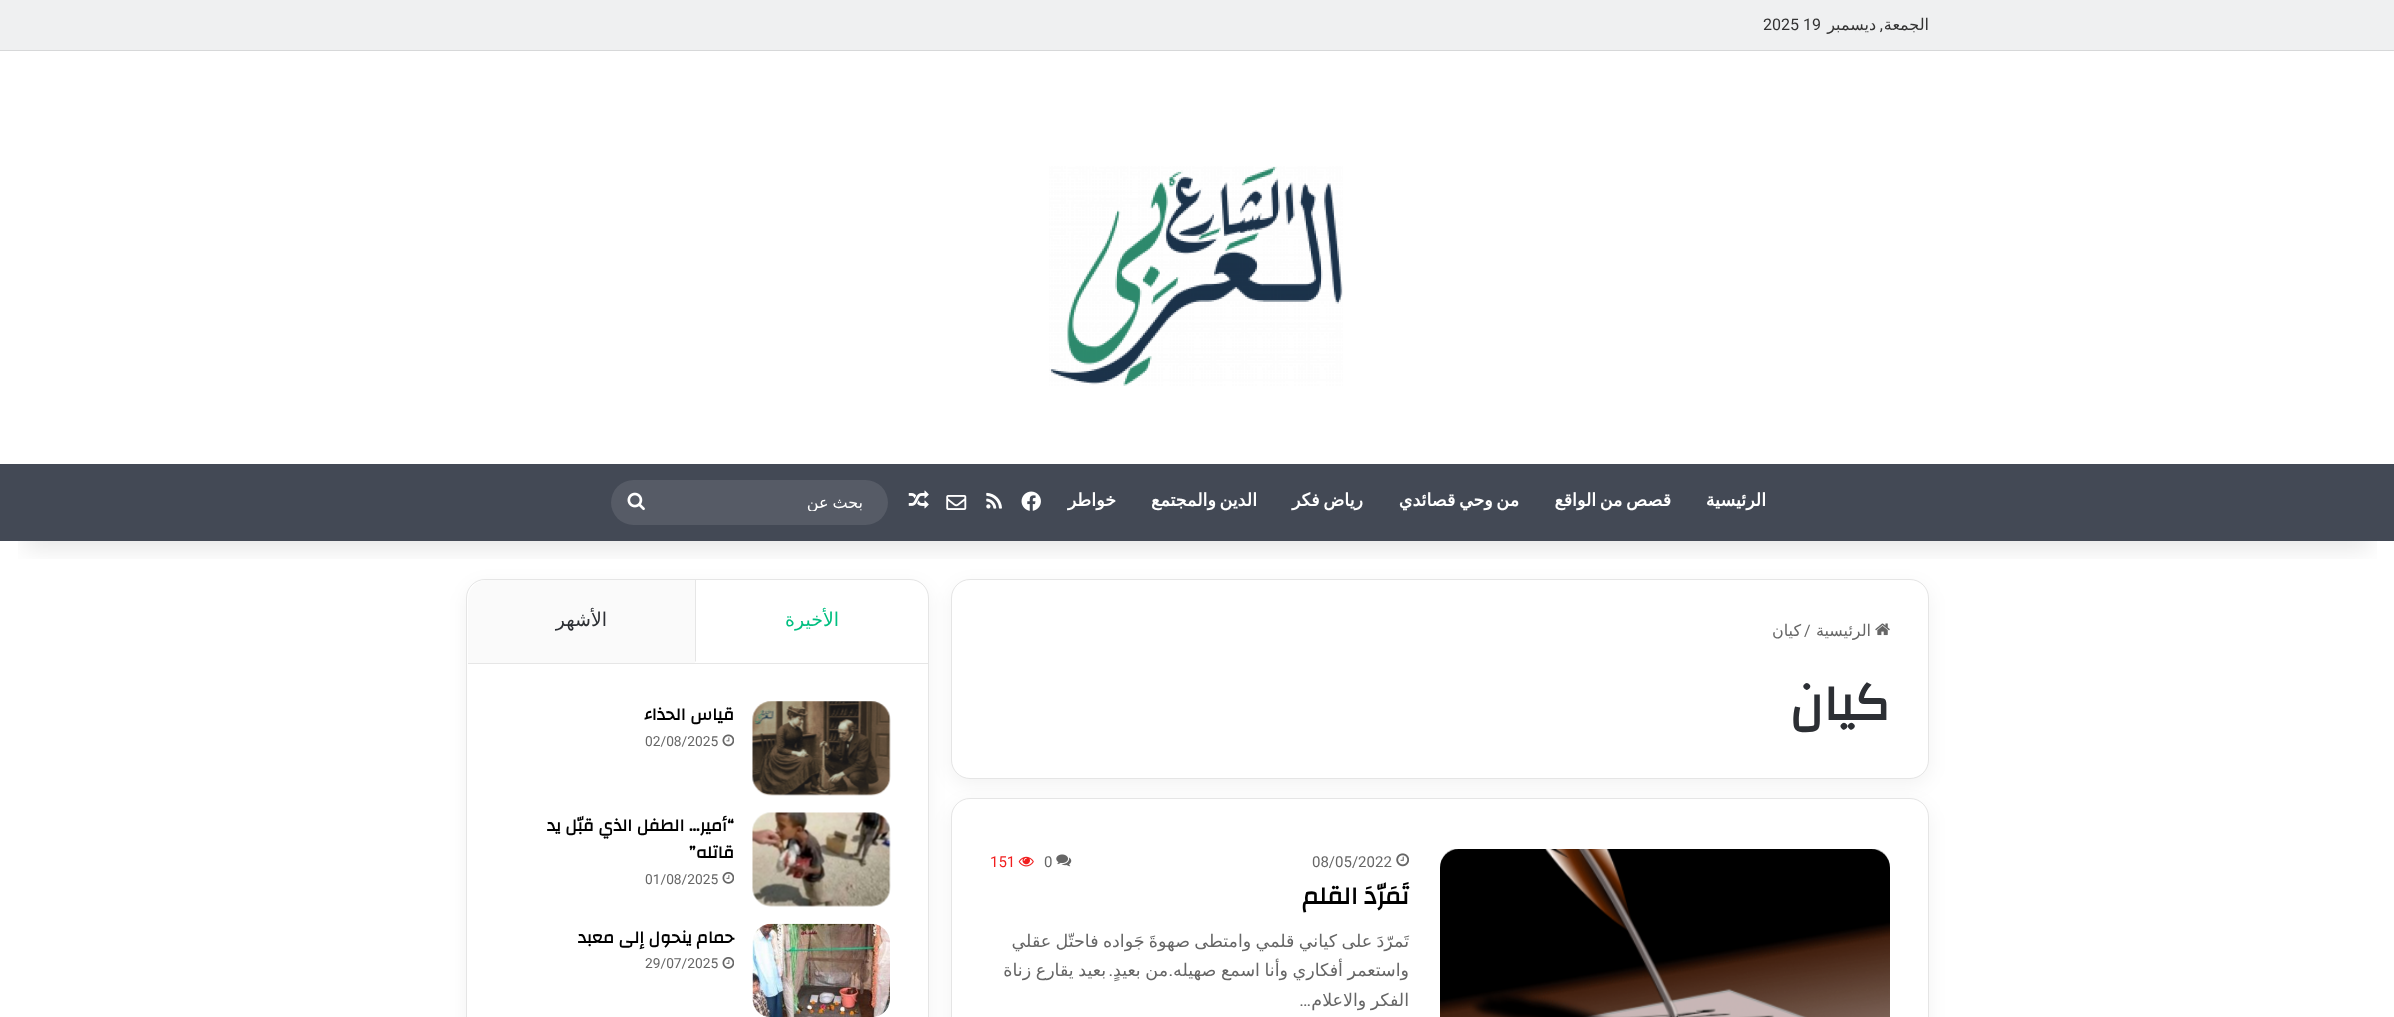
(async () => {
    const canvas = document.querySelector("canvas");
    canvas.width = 2394;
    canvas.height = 1017;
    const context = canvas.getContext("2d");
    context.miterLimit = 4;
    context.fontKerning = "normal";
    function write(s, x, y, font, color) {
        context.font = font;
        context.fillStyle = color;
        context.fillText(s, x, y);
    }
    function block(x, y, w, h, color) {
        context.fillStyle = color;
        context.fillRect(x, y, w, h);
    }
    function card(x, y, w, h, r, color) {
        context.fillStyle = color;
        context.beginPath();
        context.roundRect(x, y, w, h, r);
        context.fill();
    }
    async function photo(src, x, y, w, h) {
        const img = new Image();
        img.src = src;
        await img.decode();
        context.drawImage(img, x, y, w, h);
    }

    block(0, 0, 2394, 1017, "rgb(255, 255, 255)");
    context.fillStyle = "rgba(0, 0, 0, 0.05)";
    context.filter = "blur(9.5px)";
    context.beginPath();
    context.roundRect(951, 585, 978, 200, 19);
    context.fill();
    context.filter = "none";
    context.fillStyle = "rgb(255, 255, 255)";
    context.beginPath();
    context.roundRect(951.5, 579.5, 977, 199, 18.5);
    context.fill();
    context.strokeStyle = "rgb(229, 229, 229)";
    context.stroke();
    context.fillStyle = "rgba(0, 0, 0, 0.05)";
    context.filter = "blur(9.5px)";
    context.beginPath();
    context.roundRect(951, 804, 978, 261, 19);
    context.fill();
    context.filter = "none";
    context.fillStyle = "rgb(255, 255, 255)";
    context.beginPath();
    context.roundRect(951.5, 798.5, 977, 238, 18.5);
    context.fill();
    context.stroke();
    context.fillStyle = "rgba(0, 0, 0, 0.05)";
    context.filter = "blur(9.5px)";
    context.beginPath();
    context.roundRect(466, 585, 463, 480, 19);
    context.fill();
    context.filter = "none";
    context.fillStyle = "rgb(255, 255, 255)";
    context.beginPath();
    context.roundRect(466.5, 579.5, 462, 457, 18.5);
    context.fill();
    context.stroke();
    context.fillStyle = "rgb(230, 230, 230)";
    context.beginPath();
    context.moveTo(695, 580);
    context.lineTo(696, 580);
    context.lineTo(696, 661);
    context.lineTo(695, 662);
    context.closePath();
    context.fill();
    context.fillStyle = "rgb(250, 250, 250)";
    context.beginPath();
    context.roundRect(468, 580, 227, 83, [19, 0, 0, 0]);
    context.fill();
    context.save();
    context.beginPath();
    context.rect(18, 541, 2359, 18);
    context.clip();
    context.fillStyle = "rgba(0, 0, 0, 0.1)";
    context.filter = "blur(12.5px)";
    context.beginPath();
    context.rect(25, 56, 2345, 492);
    context.fill();
    context.filter = "none";
    context.restore();
    block(0, 0, 2394, 50, "rgb(239, 240, 241)");
    block(0, 50, 2394, 1, "rgb(215, 216, 217)");
    context.direction = "rtl";
    write("الجمعة", 1929, 30, "16px DejaVu Sans", "rgb(51, 51, 51)");
    write(",", 1883, 30, "16px Roboto", "rgb(51, 51, 51)");
    write("ديسمبر", 1876, 30, "16px DejaVu Sans", "rgb(51, 51, 51)");
    context.direction = "ltr";
    write("2025 19", 1763, 30, "16px Roboto", "rgb(51, 51, 51)");
    await photo("media/1.png", 1049, 166, 294, 220);
    block(0, 464, 2394, 77, "rgb(67, 73, 85)");
    context.direction = "rtl";
    write("الرئيسية", 1766, 506, "bold 17.5px DejaVu Sans", "rgb(255, 255, 255)");
    context.wordSpacing = "-2px";
    write("قصص من الواقع", 1671, 506, "bold 17.5px DejaVu Sans", "rgb(255, 255, 255)");
    write("من وحي قصائدي", 1519, 506, "bold 17.5px DejaVu Sans", "rgb(255, 255, 255)");
    write("رياض فكر", 1363, 506, "bold 17.5px DejaVu Sans", "rgb(255, 255, 255)");
    write("الدين والمجتمع", 1257, 506, "bold 17.5px DejaVu Sans", "rgb(255, 255, 255)");
    context.wordSpacing = "0px";
    write("خواطر", 1116, 506, "bold 17.5px DejaVu Sans", "rgb(255, 255, 255)");
    await photo("media/2.png", 1021, 491, 20, 20);
    await photo("media/3.png", 986, 492, 16, 17);
    await photo("media/4.png", 946, 495, 21, 15);
    await photo("media/5.png", 908, 490, 21, 19);
    card(611, 480, 277, 45, 22.5, "rgb(86, 91, 102)");
    context.save();
    context.beginPath();
    context.rect(655, 493, 208, 18);
    context.clip();
    context.wordSpacing = "-1px";
    write("بحث عن", 863, 508, "16px DejaVu Sans", "rgb(255, 255, 255)");
    context.restore();
    await photo("media/6.png", 627, 492, 18, 19);
    await photo("media/7.png", 1875, 623, 15, 13);
    write("الرئيسية", 1871, 636, "16px DejaVu Sans", "rgb(102, 102, 102)");
    context.direction = "ltr";
    write("/", 1804, 636, "16px Roboto", "rgb(102, 102, 102)");
    context.direction = "rtl";
    write("كيان", 1801, 636, "16px DejaVu Sans", "rgb(102, 102, 102)");
    write("كيان", 1890, 720, "bold 51px Changa", "rgb(44, 47, 52)");
    await photo("media/8.png", 1440, 849, 450, 168);
    await photo("media/9.png", 1396, 853, 13, 14);
    context.direction = "ltr";
    write("08/05/2022", 1312, 867, "15px Roboto", "rgb(102, 102, 102)");
    await photo("media/10.png", 1056, 854, 16, 13);
    write("0", 1044, 867, "15px Roboto", "rgb(102, 102, 102)");
    await photo("media/11.png", 1018, 856, 16, 11);
    write("151", 990, 867, "15px Roboto", "rgb(241, 30, 30)");
    context.direction = "rtl";
    write("تَمَرّدَ القلم", 1409, 904, "bold 25px Changa", "rgb(0, 0, 0)");
    context.wordSpacing = "-1.25px";
    write("تَمرّدَ على كياني قلمي وامتطى صهوةَ جَواده فاحتّل عقلي", 1409, 947, "17.5px DejaVu Sans", "rgb(102, 102, 102)");
    context.wordSpacing = "-1px";
    write("واستعمر أفكاري وأنا اسمع صهيله", 1409, 976, "17.5px DejaVu Sans", "rgb(102, 102, 102)");
    context.wordSpacing = "0px";
    write(".", 1173, 976, "17.5px Roboto", "rgb(102, 102, 102)");
    context.wordSpacing = "-1px";
    write("من بعيدٍ", 1168, 976, "17.5px DejaVu Sans", "rgb(102, 102, 102)");
    context.wordSpacing = "0px";
    write(".", 1113, 976, "17.5px Roboto", "rgb(102, 102, 102)");
    context.wordSpacing = "-1px";
    write("بعيد يقارع زناة", 1106, 976, "17.5px DejaVu Sans", "rgb(102, 102, 102)");
    context.wordSpacing = "-1.25px";
    write("الفكر والاعلام", 1409, 1006, "17.5px DejaVu Sans", "rgb(102, 102, 102)");
    context.wordSpacing = "0px";
    write("…", 1311, 1006, "17.5px Roboto", "rgb(102, 102, 102)");
    block(468, 663, 460, 1, "rgb(230, 230, 230)");
    write("الأخيرة", 839, 626, "19px DejaVu Sans", "rgb(0, 191, 128)");
    write("الأشهر", 607, 626, "19px DejaVu Sans", "rgb(44, 47, 52)");
    await photo("media/12.png", 752, 701, 139, 95);
    write("قياس الحذاء", 734, 720, "bold 17.5px Changa", "rgb(0, 0, 0)");
    await photo("media/13.png", 722, 734, 12, 13);
    context.direction = "ltr";
    write("02/08/2025", 645, 746, "13.75px Roboto", "rgb(102, 102, 102)");
    await photo("media/14.png", 752, 812, 139, 95);
    context.direction = "rtl";
    write("“أمير… الطفل الذي قبّل يد", 734, 831, "bold 17.5px Changa", "rgb(0, 0, 0)");
    write("قاتله”", 734, 858, "bold 17.5px Changa", "rgb(0, 0, 0)");
    await photo("media/15.png", 722, 872, 12, 12);
    context.direction = "ltr";
    write("01/08/2025", 645, 884, "13.75px Roboto", "rgb(102, 102, 102)");
    await photo("media/16.png", 752, 923, 138, 94);
    context.direction = "rtl";
    write("حمام ينحول إلى معبد", 734, 943, "bold 17.5px Changa", "rgb(0, 0, 0)");
    await photo("media/15.png", 722, 957, 12, 12);
    context.direction = "ltr";
    write("29/07/2025", 645, 968, "13.75px Roboto", "rgb(102, 102, 102)");
})();
